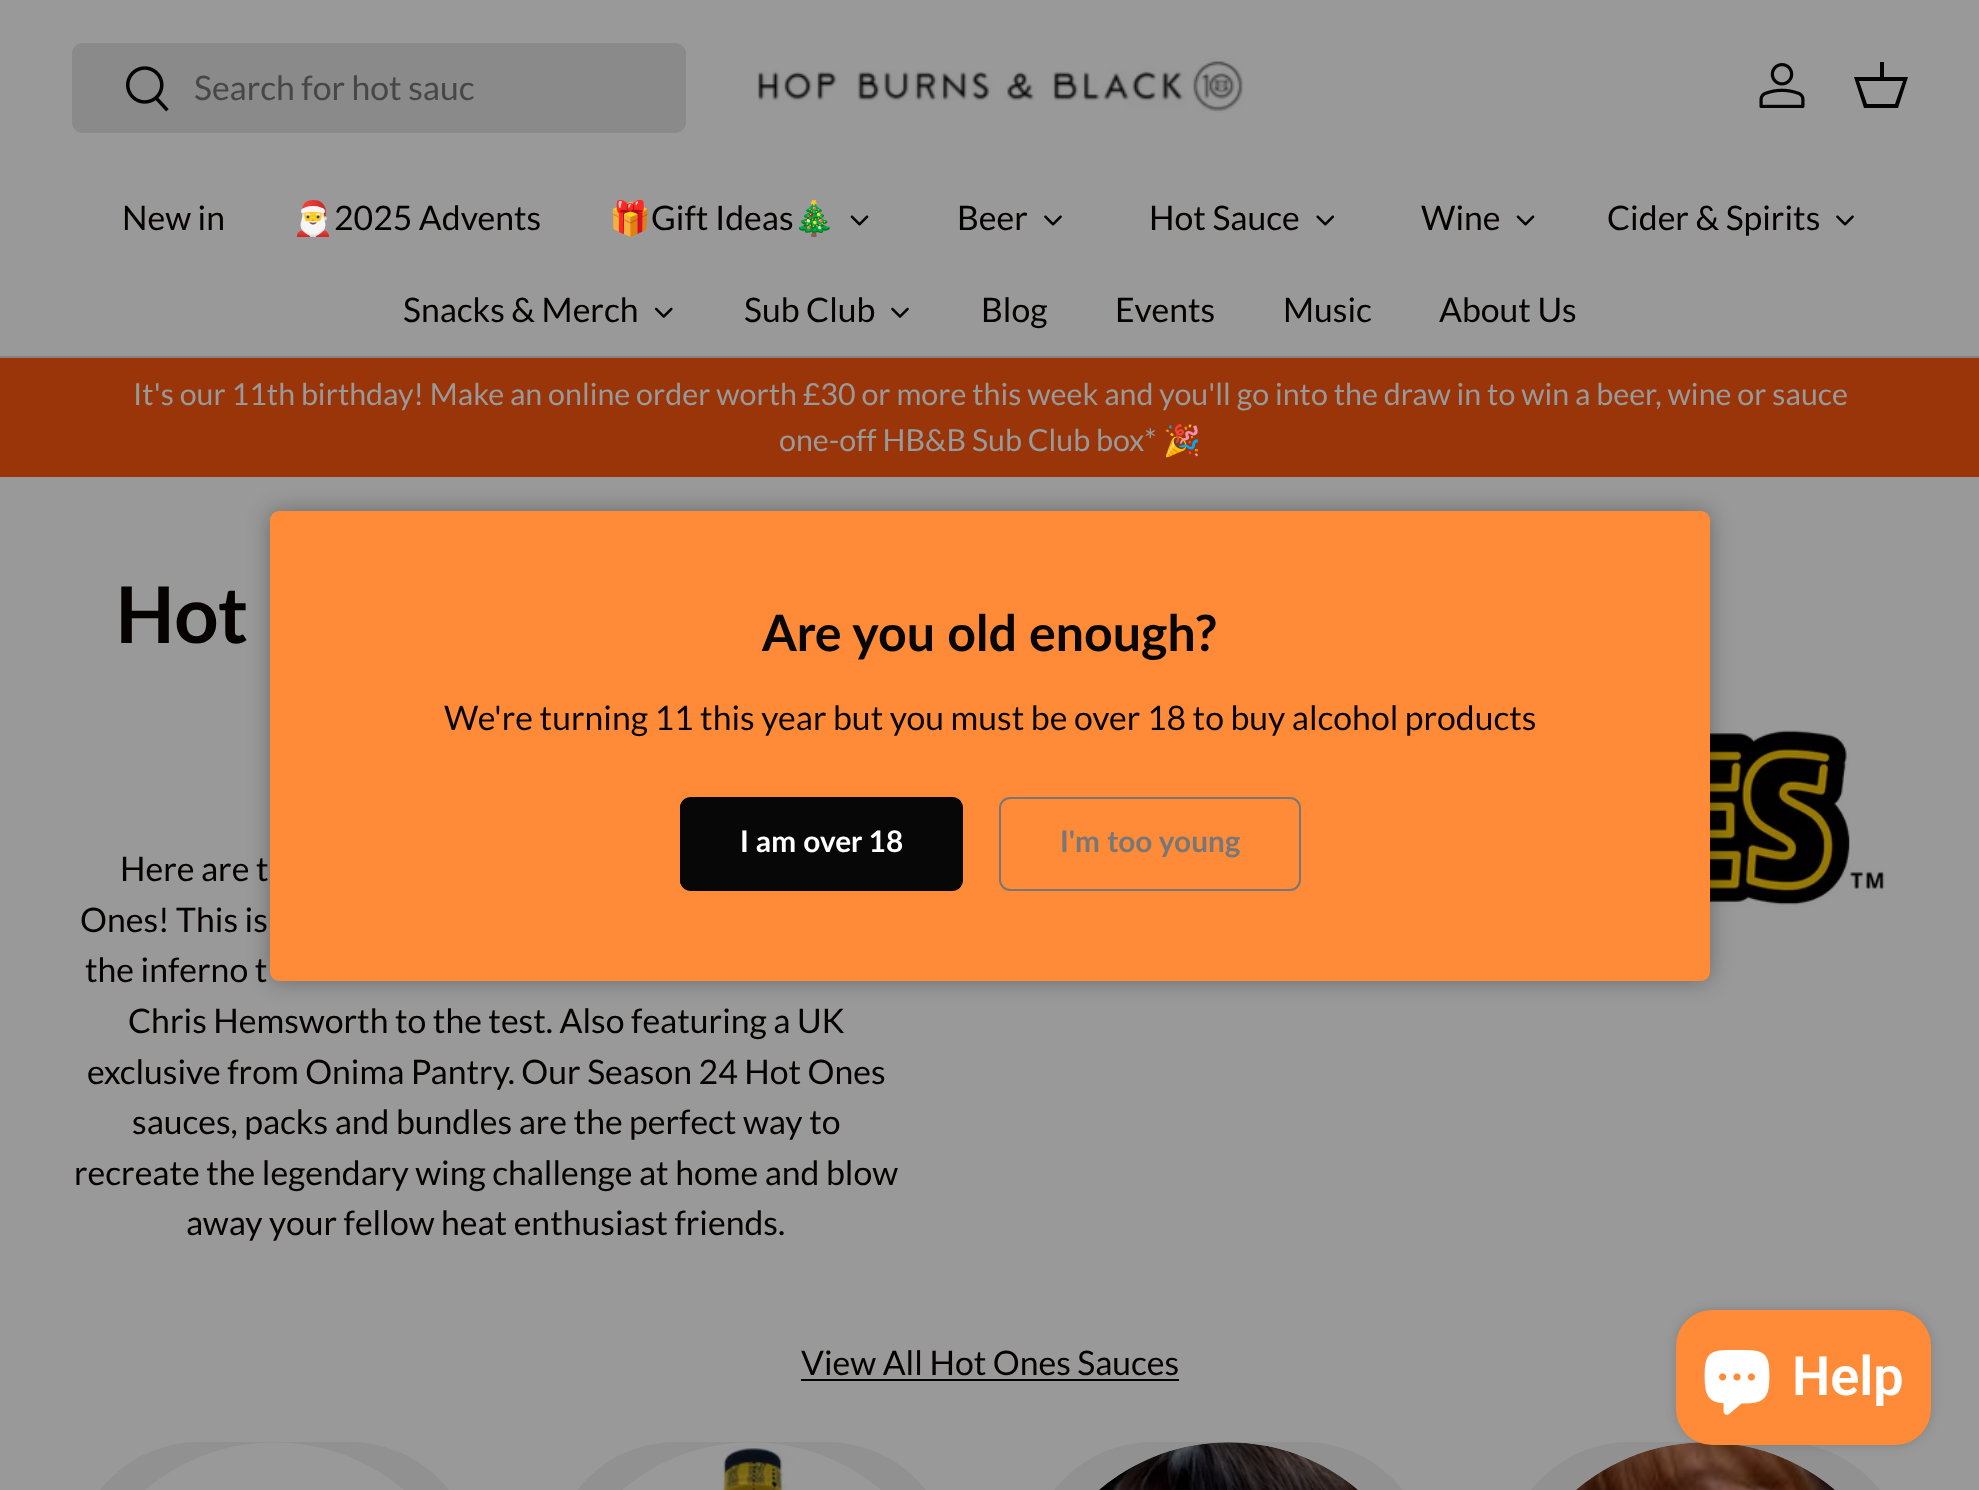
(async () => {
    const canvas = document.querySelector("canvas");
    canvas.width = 1979;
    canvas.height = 1490;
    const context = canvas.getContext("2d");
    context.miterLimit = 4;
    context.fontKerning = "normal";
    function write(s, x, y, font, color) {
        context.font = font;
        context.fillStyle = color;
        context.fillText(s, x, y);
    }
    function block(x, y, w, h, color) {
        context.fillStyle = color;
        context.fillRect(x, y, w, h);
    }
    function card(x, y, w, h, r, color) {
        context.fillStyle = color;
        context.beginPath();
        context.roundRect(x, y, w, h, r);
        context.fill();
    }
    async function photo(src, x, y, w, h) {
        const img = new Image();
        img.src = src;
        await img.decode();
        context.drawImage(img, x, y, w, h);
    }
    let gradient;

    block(0, 0, 1979, 1490, "rgb(153, 153, 153)");
    block(0, 356, 1979, 2, "rgb(131, 131, 131)");
    card(72, 43, 614, 90, 11, "rgb(138, 138, 138)");
    await photo("media/1.png", 126, 66, 43, 46);
    write("Search for hot sauc", 194, 100, "33.75px Lato", "rgb(71, 71, 71)");
    await photo("media/2.png", 757, 57, 486, 56);
    await photo("media/3.png", 1759, 63, 46, 45);
    context.fillStyle = "rgb(4, 4, 4)";
    context.beginPath();
    context.moveTo(1880, 77);
    context.lineTo(1880, 62);
    context.lineTo(1884, 62);
    context.lineTo(1884, 77);
    context.lineTo(1908, 77);
    context.lineTo(1898, 108);
    context.lineTo(1864, 108);
    context.lineTo(1854, 77);
    context.closePath();
    context.moveTo(1859, 81);
    context.lineTo(1867, 104);
    context.lineTo(1895, 104);
    context.lineTo(1903, 81);
    context.closePath();
    context.fill();
    write("New in", 122, 230, "33.75px Lato", "rgb(5, 2, 1)");
    write("🎅", 292, 230, "33.75px Noto Color Emoji", "rgb(5, 2, 1)");
    write("2025 Advents", 334, 230, "33.75px Lato", "rgb(5, 2, 1)");
    write("🎁", 609, 230, "33.75px Noto Color Emoji", "rgb(5, 2, 1)");
    write("Gift Ideas", 651, 230, "33.75px Lato", "rgb(5, 2, 1)");
    write("🎄", 793, 230, "33.75px Noto Color Emoji", "rgb(5, 2, 1)");
    await photo("media/4.png", 850, 215, 19, 11);
    write("Beer", 957, 230, "33.75px Lato", "rgb(5, 2, 1)");
    await photo("media/5.png", 1044, 215, 18, 11);
    write("Hot Sauce", 1149, 230, "33.75px Lato", "rgb(5, 2, 1)");
    await photo("media/6.png", 1316, 215, 19, 11);
    write("Wine", 1421, 230, "33.75px Lato", "rgb(5, 2, 1)");
    await photo("media/4.png", 1516, 215, 19, 11);
    write("Cider & Spirits", 1607, 230, "33.75px Lato", "rgb(5, 2, 1)");
    await photo("media/5.png", 1836, 215, 18, 11);
    write("Snacks & Merch", 403, 322, "33.75px Lato", "rgb(5, 2, 1)");
    await photo("media/7.png", 654, 307, 19, 11);
    write("Sub Club", 744, 322, "33.75px Lato", "rgb(5, 2, 1)");
    await photo("media/8.png", 891, 307, 18, 11);
    write("Blog", 981, 322, "33.75px Lato", "rgb(5, 2, 1)");
    write("Events", 1115, 322, "33.75px Lato", "rgb(5, 2, 1)");
    write("Music", 1283, 322, "33.75px Lato", "rgb(5, 2, 1)");
    write("About Us", 1439, 322, "33.75px Lato", "rgb(5, 2, 1)");
    block(0, 358, 1979, 119, "rgb(153, 53, 8)");
    write("It's our 11th birthday! Make an online order worth £30 or more this week and you'll go into the draw in to win a beer, wine or sauce", 133, 405, "30.38px Lato", "rgb(153, 153, 153)");
    write("one-off HB&B Sub Club box*", 779, 451, "30.38px Lato", "rgb(153, 153, 153)");
    write("🎉", 1163, 451, "30.38px Noto Color Emoji", "rgb(153, 153, 153)");
    write("Hot", 115, 643, "bold 78px Lato", "rgb(5, 2, 1)");
    write("Here are t", 120, 881, "33.75px Lato", "rgb(5, 2, 1)");
    write("Ones! This is", 80, 932, "33.75px Lato", "rgb(5, 2, 1)");
    write("the inferno t", 85, 982, "33.75px Lato", "rgb(5, 2, 1)");
    write("Chris Hemsworth to the test. Also featuring a UK", 128, 1033, "33.75px Lato", "rgb(5, 2, 1)");
    write("exclusive from Onima Pantry. Our Season 24 Hot Ones", 87, 1084, "33.75px Lato", "rgb(5, 2, 1)");
    write("sauces, packs and bundles are the perfect way to", 132, 1134, "33.75px Lato", "rgb(5, 2, 1)");
    write("recreate the legendary wing challenge at home and blow", 74, 1185, "33.75px Lato", "rgb(5, 2, 1)");
    write("away your fellow heat enthusiast friends.", 186, 1235, "33.75px Lato", "rgb(5, 2, 1)");
    await photo("media/9.png", 1710, 630, 175, 277);
    write("View All Hot Ones Sauces", 801, 1375, "33.75px Lato", "rgb(5, 2, 1)");
    block(801, 1379, 378, 2, "rgb(5, 2, 1)");
    card(74, 1442, 401, 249, 200.5, "rgb(145, 145, 145)");
    await photo("media/10.png", 145, 1442, 258, 48);
    card(551, 1442, 401, 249, 200.5, "rgb(145, 145, 145)");
    await photo("media/11.png", 622, 1442, 258, 48);
    card(1028, 1442, 401, 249, 200.5, "rgb(145, 145, 145)");
    await photo("media/12.png", 1099, 1442, 259, 48);
    card(1505, 1442, 401, 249, 200.5, "rgb(145, 145, 145)");
    await photo("media/13.png", 1576, 1442, 259, 48);
    context.fillStyle = "rgba(0, 0, 0, 0.3)";
    context.filter = "blur(11px)";
    context.beginPath();
    context.roundRect(270, 511, 1440, 470, 9);
    context.fill();
    context.filter = "none";
    card(270, 511, 1440, 470, 9, "rgb(255, 139, 56)");
    write("Are you old enough?", 762, 651, "bold 50.1px Lato", "rgb(7, 7, 7)");
    write("We're turning 11 this year but you must be over 18 to buy alcohol products", 444, 730, "33.75px Lato", "rgb(7, 7, 7)");
    context.save();
    context.beginPath();
    context.roundRect(680, 797, 283, 94, 11);
    context.clip();
    gradient = context.createLinearGradient(138, 743, 947, 945);
    gradient.addColorStop(0.6, "rgb(52, 52, 52)");
    gradient.addColorStop(0.6, "rgb(7, 7, 7)");
    gradient.addColorStop(1, "rgb(7, 7, 7)");
    context.fillStyle = gradient;
    context.fillRect(680, 799, 281, 90);
    context.restore();
    context.beginPath();
    context.roundRect(681, 798, 281, 92, 10);
    context.strokeStyle = "rgb(7, 7, 7)";
    context.lineWidth = 2;
    context.stroke();
    write("I am over 18", 740, 852, "bold 29.75px Lato", "rgb(255, 255, 255)");
    context.beginPath();
    context.roundRect(1000, 798, 300, 92, 10);
    context.strokeStyle = "rgb(119, 119, 119)";
    context.stroke();
    write("I'm too young", 1060, 852, "bold 29.75px Lato", "rgb(119, 119, 119)");
    context.fillStyle = "rgba(0, 0, 0, 0.15)";
    context.filter = "blur(5.5px)";
    context.beginPath();
    context.roundRect(1676, 1310, 255, 135, 36);
    context.fill();
    context.filter = "none";
    card(1676, 1310, 255, 135, 36, "rgb(255, 139, 56)");
    await photo("media/14.png", 1704, 1350, 66, 65);
    write("Help", 1792, 1395, "600 54px Roboto", "rgb(255, 255, 255)");
})();
